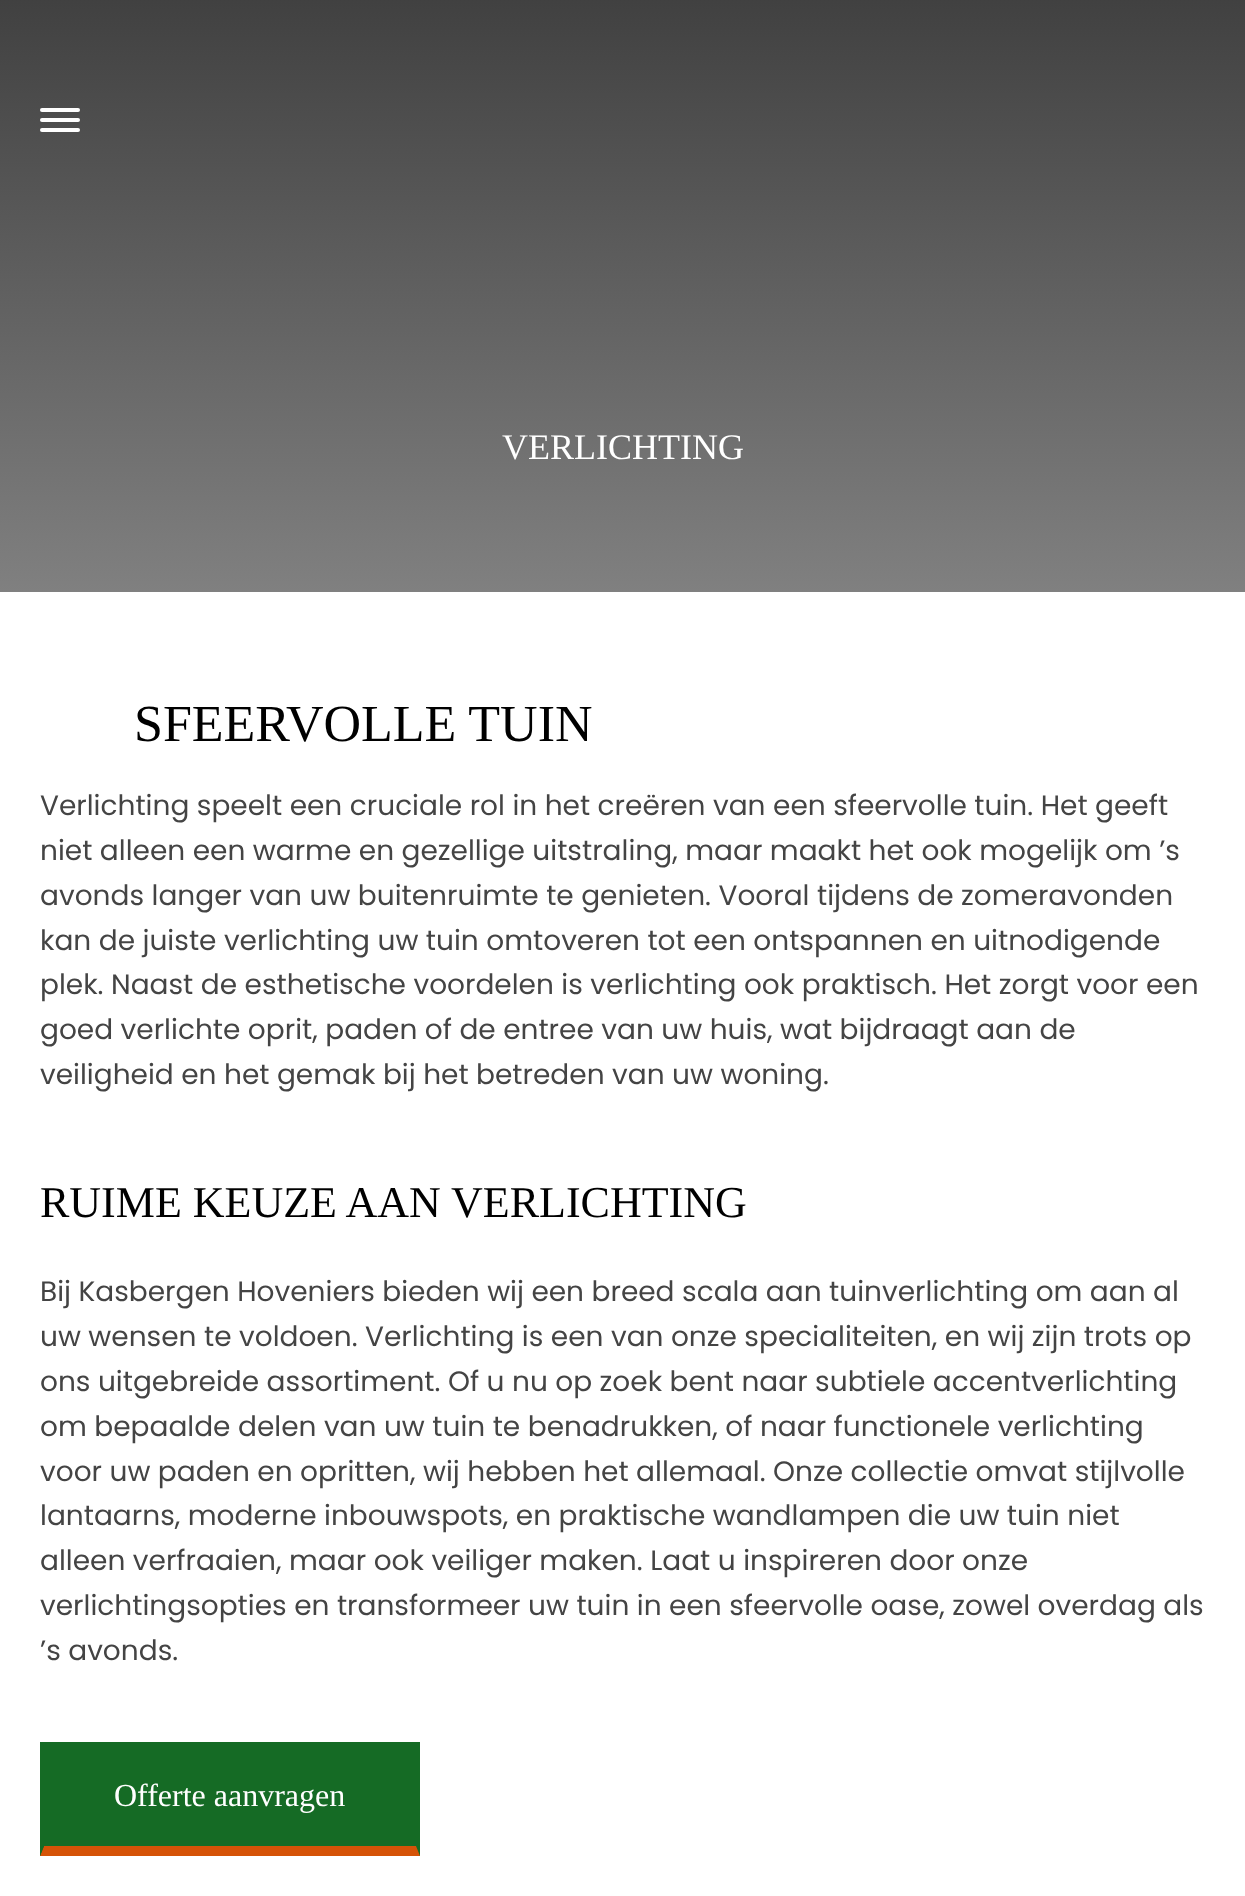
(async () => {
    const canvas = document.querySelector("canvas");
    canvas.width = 1245;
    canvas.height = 1896;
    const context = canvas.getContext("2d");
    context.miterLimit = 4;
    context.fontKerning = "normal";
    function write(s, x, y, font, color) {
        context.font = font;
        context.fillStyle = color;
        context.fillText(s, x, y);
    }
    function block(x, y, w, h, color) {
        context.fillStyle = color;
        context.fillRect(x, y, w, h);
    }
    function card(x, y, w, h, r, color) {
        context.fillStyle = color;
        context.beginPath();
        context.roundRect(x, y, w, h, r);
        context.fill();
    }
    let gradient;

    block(0, 0, 1245, 1896, "rgb(255, 255, 255)");
    gradient = context.createLinearGradient(623, -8, 623, 592);
    gradient.addColorStop(0, "rgb(64, 64, 64)");
    gradient.addColorStop(1, "rgb(128, 128, 128)");
    context.fillStyle = gradient;
    context.fillRect(0, 0, 1245, 592);
    card(40, 108, 40, 4, 2, "rgb(255, 255, 255)");
    card(40, 118, 40, 4, 2, "rgb(255, 255, 255)");
    card(40, 128, 40, 4, 2, "rgb(255, 255, 255)");
    write("VERLICHTING", 502, 459, "36px Liberation Serif", "rgb(255, 255, 255)");
    write("SFEERVOLLE TUIN", 134, 741, "52px Liberation Serif", "rgb(0, 0, 0)");
    write("Verlichting speelt een cruciale rol in het creëren van een sfeervolle tuin. Het geeft", 40, 815, "28px Poppins", "rgb(68, 68, 68)");
    write("niet alleen een warme en gezellige uitstraling, maar maakt het ook mogelijk om ’s", 40, 860, "28px Poppins", "rgb(68, 68, 68)");
    write("avonds langer van uw buitenruimte te genieten. Vooral tijdens de zomeravonden", 40, 905, "28px Poppins", "rgb(68, 68, 68)");
    write("kan de juiste verlichting uw tuin omtoveren tot een ontspannen en uitnodigende", 40, 950, "28px Poppins", "rgb(68, 68, 68)");
    write("plek. Naast de esthetische voordelen is verlichting ook praktisch. Het zorgt voor een", 40, 994, "28px Poppins", "rgb(68, 68, 68)");
    write("goed verlichte oprit, paden of de entree van uw huis, wat bijdraagt aan de", 40, 1039, "28px Poppins", "rgb(68, 68, 68)");
    write("veiligheid en het gemak bij het betreden van uw woning.", 40, 1084, "28px Poppins", "rgb(68, 68, 68)");
    write("RUIME KEUZE AAN VERLICHTING", 40, 1217, "44px Liberation Serif", "rgb(0, 0, 0)");
    write("Bij Kasbergen Hoveniers bieden wij een breed scala aan tuinverlichting om aan al", 40, 1301, "28px Poppins", "rgb(68, 68, 68)");
    write("uw wensen te voldoen. Verlichting is een van onze specialiteiten, en wij zijn trots op", 40, 1346, "28px Poppins", "rgb(68, 68, 68)");
    write("ons uitgebreide assortiment. Of u nu op zoek bent naar subtiele accentverlichting", 40, 1391, "28px Poppins", "rgb(68, 68, 68)");
    write("om bepaalde delen van uw tuin te benadrukken, of naar functionele verlichting", 40, 1436, "28px Poppins", "rgb(68, 68, 68)");
    write("voor uw paden en opritten, wij hebben het allemaal. Onze collectie omvat stijlvolle", 40, 1481, "28px Poppins", "rgb(68, 68, 68)");
    write("lantaarns, moderne inbouwspots, en praktische wandlampen die uw tuin niet", 40, 1525, "28px Poppins", "rgb(68, 68, 68)");
    write("alleen verfraaien, maar ook veiliger maken. Laat u inspireren door onze", 40, 1570, "28px Poppins", "rgb(68, 68, 68)");
    write("verlichtingsopties en transformeer uw tuin in een sfeervolle oase, zowel overdag als", 40, 1615, "28px Poppins", "rgb(68, 68, 68)");
    write("’s avonds.", 40, 1660, "28px Poppins", "rgb(68, 68, 68)");
    block(40, 1742, 380, 114, "rgb(21, 107, 37)");
    context.fillStyle = "rgb(213, 83, 7)";
    context.beginPath();
    context.moveTo(420, 1856);
    context.lineTo(40, 1856);
    context.lineTo(44, 1846);
    context.lineTo(416, 1846);
    context.closePath();
    context.fill();
    context.fillStyle = "rgb(21, 107, 37)";
    context.beginPath();
    context.moveTo(40, 1856);
    context.lineTo(40, 1742);
    context.lineTo(44, 1746);
    context.lineTo(44, 1846);
    context.closePath();
    context.fill();
    write("Offerte aanvragen", 114, 1806, "32px Liberation Serif", "rgb(255, 255, 255)");
})();
